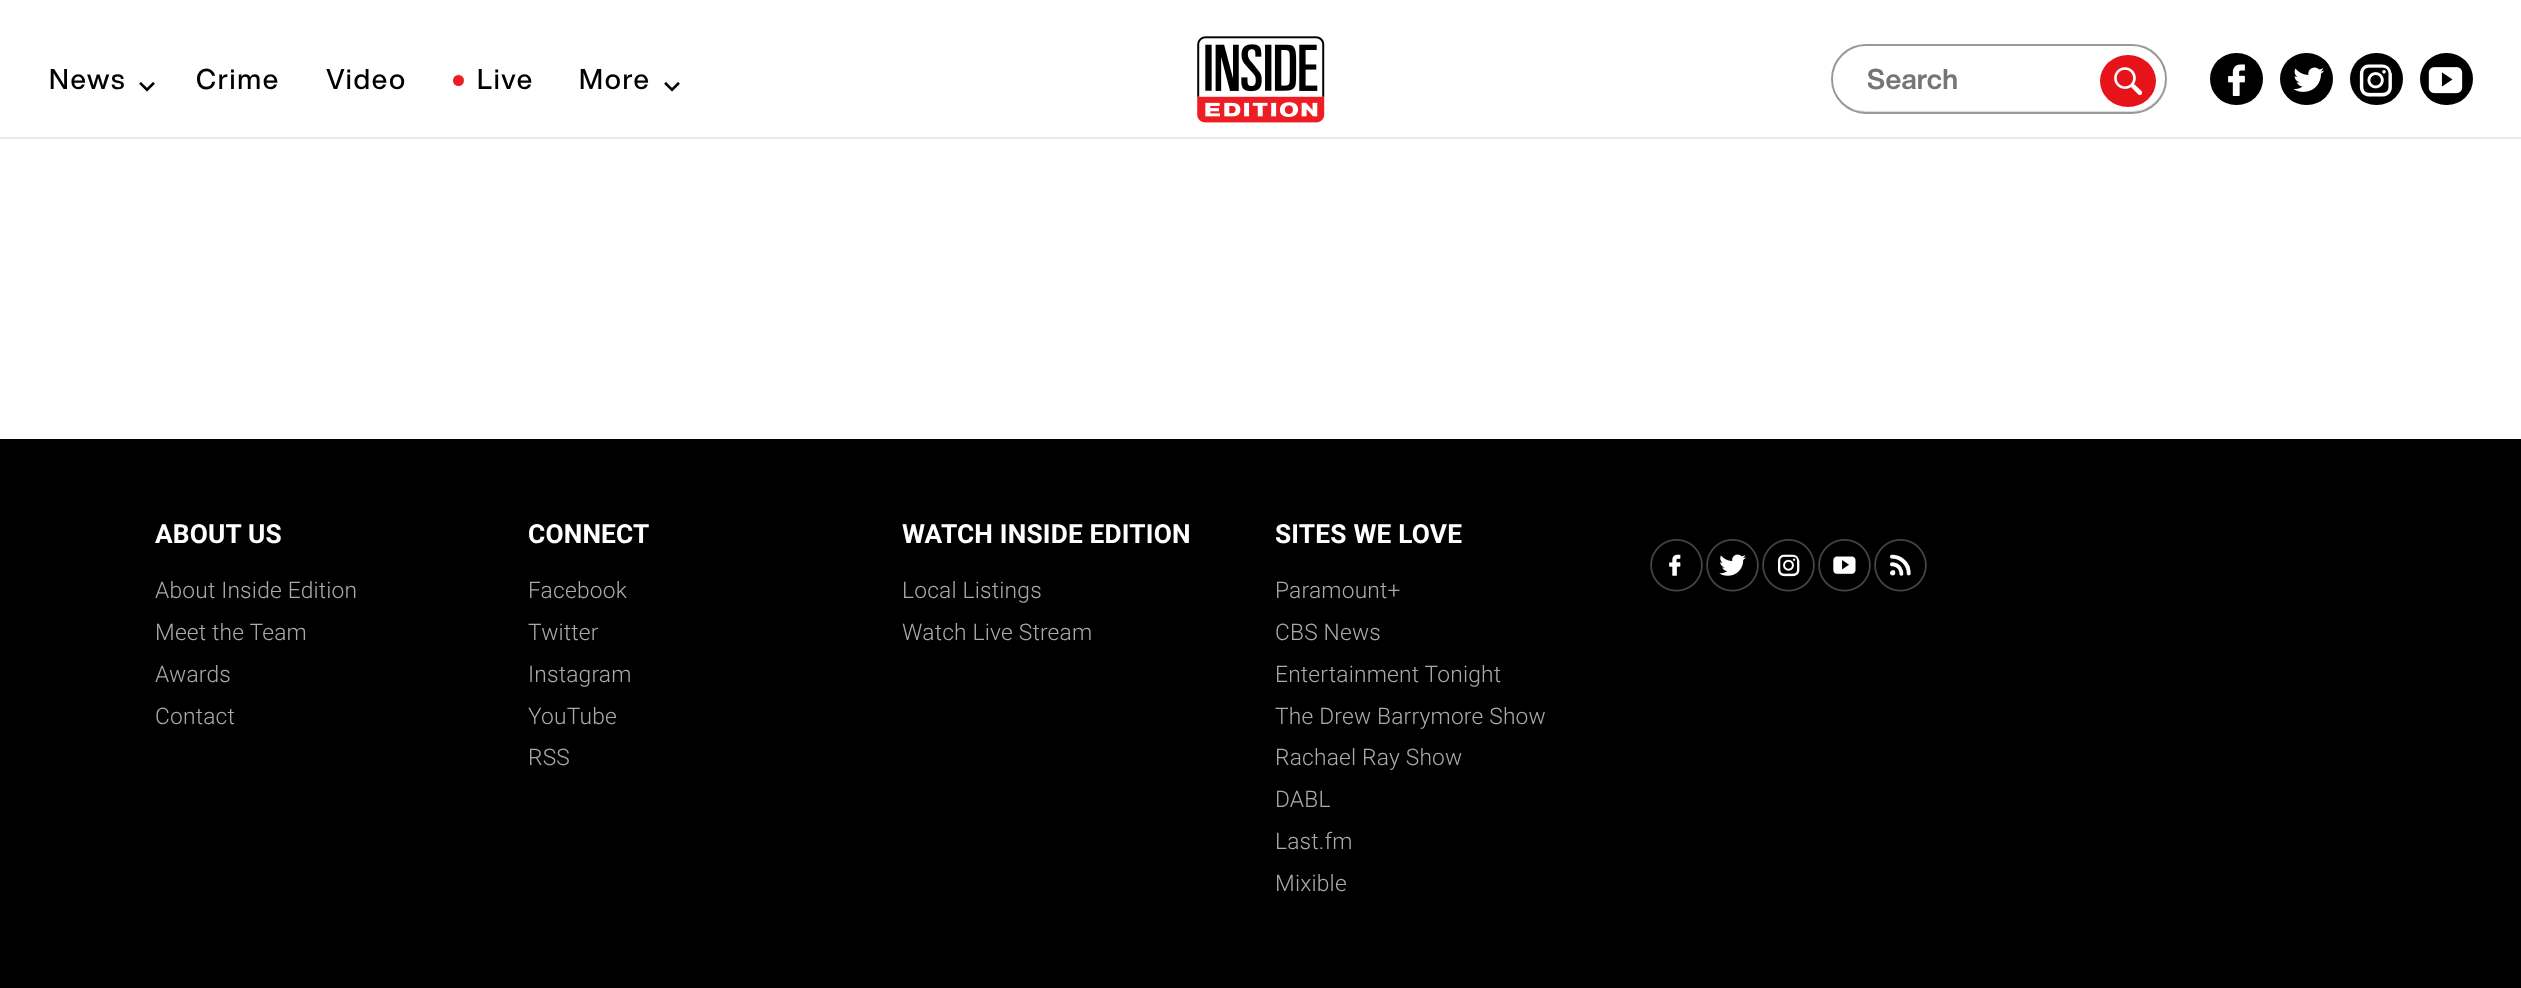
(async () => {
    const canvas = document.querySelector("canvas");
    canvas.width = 2521;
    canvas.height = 988;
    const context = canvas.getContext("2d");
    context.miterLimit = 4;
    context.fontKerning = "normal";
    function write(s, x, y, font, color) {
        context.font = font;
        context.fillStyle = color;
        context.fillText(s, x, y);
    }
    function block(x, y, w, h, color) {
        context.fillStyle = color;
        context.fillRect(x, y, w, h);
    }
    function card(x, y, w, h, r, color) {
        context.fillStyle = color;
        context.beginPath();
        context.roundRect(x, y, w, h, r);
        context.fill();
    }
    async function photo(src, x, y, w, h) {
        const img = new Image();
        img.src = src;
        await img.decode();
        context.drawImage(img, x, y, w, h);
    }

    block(0, 0, 2521, 988, "rgb(255, 255, 255)");
    block(0, 137, 2521, 2, "rgb(233, 233, 233)");
    await photo("media/1.png", 139, 82, 16, 10);
    context.letterSpacing = "1.75px";
    write("News", 49, 89, "500 28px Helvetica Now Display", "rgb(0, 0, 0)");
    write("Crime", 196, 89, "500 28px Helvetica Now Display", "rgb(0, 0, 0)");
    write("Video", 326, 89, "500 28px Helvetica Now Display", "rgb(0, 0, 0)");
    context.fillStyle = "rgb(253, 232, 233)";
    context.beginPath();
    context.arc(458.5, 77.5, 3.5, 0, Math.PI * 2);
    context.fill();
    write("Live", 477, 89, "500 28px Helvetica Now Display", "rgb(0, 0, 0)");
    context.fillStyle = "rgb(237, 29, 35)";
    context.beginPath();
    context.arc(458.5, 80.5, 5.5, 0, Math.PI * 2);
    context.fill();
    await photo("media/1.png", 664, 82, 16, 10);
    write("More", 579, 89, "500 28px Helvetica Now Display", "rgb(0, 0, 0)");
    await photo("media/2.png", 1197, 36, 128, 87);
    context.fillStyle = "rgb(221, 221, 221)";
    context.beginPath();
    context.moveTo(1832, 78);
    context.lineTo(1832, 79);
    context.bezierCurveTo(1832, 97, 1847, 112, 1865, 112);
    context.lineTo(2132, 112);
    context.bezierCurveTo(2150, 112, 2165, 97, 2165, 79);
    context.lineTo(2165, 78);
    context.bezierCurveTo(2165, 96, 2150, 111, 2132, 111);
    context.lineTo(1866, 111);
    context.bezierCurveTo(1847, 111, 1832, 96, 1832, 78);
    context.closePath();
    context.fill();
    context.beginPath();
    context.roundRect(1832, 45, 334, 68, 34);
    context.strokeStyle = "rgb(153, 153, 153)";
    context.lineWidth = 2;
    context.stroke();
    context.letterSpacing = "0.2px";
    write("Search", 1867, 89, "bold 28px Helvetica Now Display", "rgb(117, 117, 117)");
    context.fillStyle = "rgb(231, 19, 26)";
    context.beginPath();
    context.ellipse(2128, 81, 28, 26, 0, 0, Math.PI * 2);
    context.fill();
    await photo("media/3.png", 2114, 67, 28, 28);
    card(2210, 53, 53, 52, 26, "rgb(0, 0, 0)");
    await photo("media/4.png", 2228, 64, 17, 32);
    card(2280, 53, 53, 52, 26, "rgb(0, 0, 0)");
    await photo("media/5.png", 2293, 67, 31, 25);
    card(2350, 53, 53, 52, 26, "rgb(0, 0, 0)");
    await photo("media/6.png", 2359, 64, 33, 33);
    card(2420, 53, 53, 52, 26, "rgb(0, 0, 0)");
    await photo("media/7.png", 2428, 67, 35, 27);
    block(0, 439, 2521, 549, "rgb(0, 0, 0)");
    write("ABOUT US", 155, 543, "bold 26.25px Roboto", "rgb(255, 255, 255)");
    write("About Inside Edition", 155, 598, "300 22.75px Roboto", "rgb(170, 170, 170)");
    write("Meet the Team", 155, 640, "300 22.75px Roboto", "rgb(170, 170, 170)");
    write("Awards", 155, 682, "300 22.75px Roboto", "rgb(170, 170, 170)");
    write("Contact", 155, 724, "300 22.75px Roboto", "rgb(170, 170, 170)");
    write("CONNECT", 528, 543, "bold 26.25px Roboto", "rgb(255, 255, 255)");
    write("Facebook", 528, 598, "300 22.75px Roboto", "rgb(170, 170, 170)");
    write("Twitter", 528, 640, "300 22.75px Roboto", "rgb(170, 170, 170)");
    write("Instagram", 528, 682, "300 22.75px Roboto", "rgb(170, 170, 170)");
    write("YouTube", 528, 724, "300 22.75px Roboto", "rgb(170, 170, 170)");
    write("RSS", 528, 765, "300 22.75px Roboto", "rgb(170, 170, 170)");
    write("WATCH INSIDE EDITION", 902, 543, "bold 26.25px Roboto", "rgb(255, 255, 255)");
    write("Local Listings", 902, 598, "300 22.75px Roboto", "rgb(170, 170, 170)");
    write("Watch Live Stream", 902, 640, "300 22.75px Roboto", "rgb(170, 170, 170)");
    write("SITES WE LOVE", 1275, 543, "bold 26.25px Roboto", "rgb(255, 255, 255)");
    write("Paramount+", 1275, 598, "300 22.75px Roboto", "rgb(170, 170, 170)");
    write("CBS News", 1275, 640, "300 22.75px Roboto", "rgb(170, 170, 170)");
    write("Entertainment Tonight", 1275, 682, "300 22.75px Roboto", "rgb(170, 170, 170)");
    write("The Drew Barrymore Show", 1275, 724, "300 22.75px Roboto", "rgb(170, 170, 170)");
    write("Rachael Ray Show", 1275, 765, "300 22.75px Roboto", "rgb(170, 170, 170)");
    write("DABL", 1275, 807, "300 22.75px Roboto", "rgb(170, 170, 170)");
    write("Last.fm", 1275, 849, "300 22.75px Roboto", "rgb(170, 170, 170)");
    write("Mixible", 1275, 891, "300 22.75px Roboto", "rgb(170, 170, 170)");
    await photo("media/8.png", 1650, 539, 53, 53);
    await photo("media/9.png", 1706, 539, 53, 53);
    await photo("media/10.png", 1762, 539, 53, 53);
    await photo("media/11.png", 1818, 539, 53, 53);
    await photo("media/12.png", 1874, 539, 53, 53);
})();
